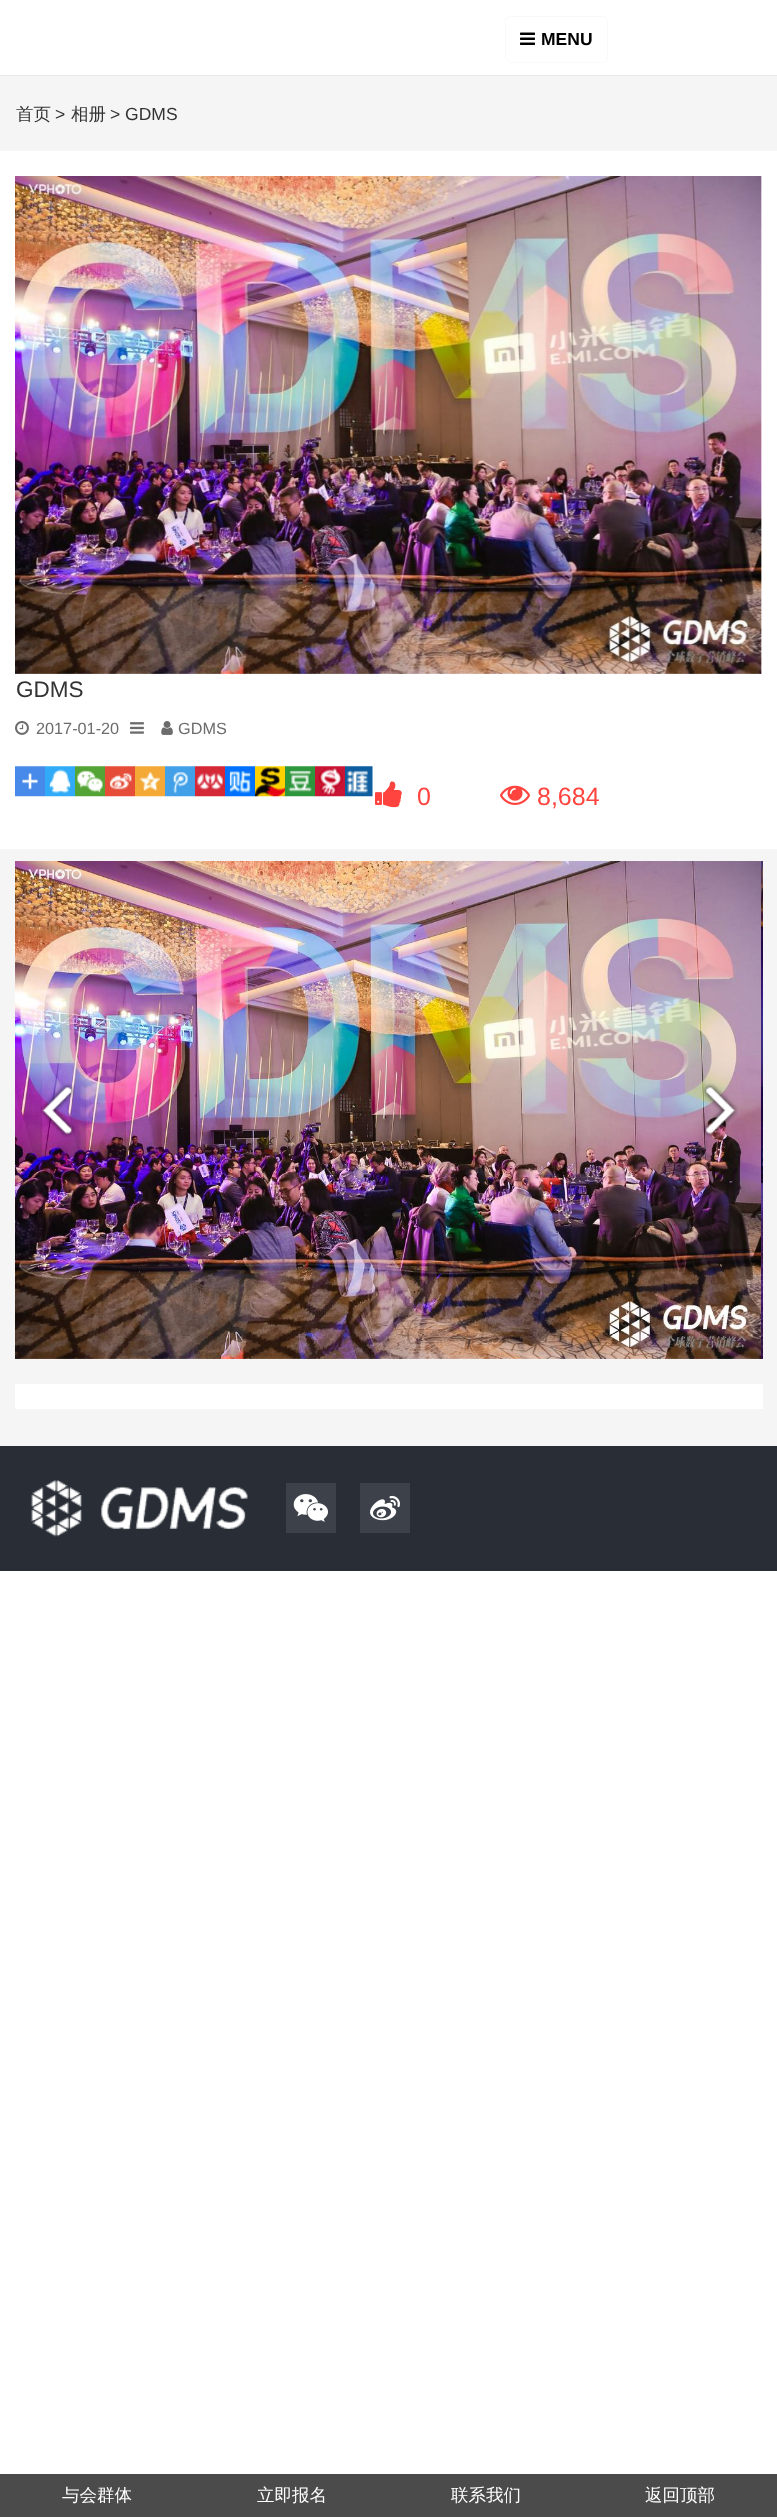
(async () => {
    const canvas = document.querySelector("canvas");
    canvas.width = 777;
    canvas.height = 2517;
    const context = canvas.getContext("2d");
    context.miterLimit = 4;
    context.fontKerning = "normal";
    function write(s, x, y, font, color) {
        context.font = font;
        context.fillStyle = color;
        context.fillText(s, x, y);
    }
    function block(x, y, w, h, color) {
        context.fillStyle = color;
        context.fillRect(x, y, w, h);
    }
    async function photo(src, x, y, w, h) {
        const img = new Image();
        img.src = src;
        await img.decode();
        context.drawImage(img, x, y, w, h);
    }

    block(0, 0, 777, 2517, "rgb(255, 255, 255)");
    block(0, 75, 777, 1, "rgb(230, 232, 233)");
    context.beginPath();
    context.roundRect(505.5, 16.5, 102, 46, 5.5);
    context.strokeStyle = "rgb(249, 249, 249)";
    context.stroke();
    await photo("media/1.png", 520, 32, 15, 13);
    write("MENU", 541, 45, "bold 17.5px Liberation Sans", "rgb(0, 0, 0)");
    block(0, 76, 777, 75, "rgb(245, 245, 245)");
    write("首页", 16, 120, "500 17.5px WenQuanYi Zen Hei", "rgb(51, 51, 51)");
    write(">", 55, 120, "17.5px Liberation Sans", "rgb(51, 51, 51)");
    write("相册", 71, 120, "500 17.5px WenQuanYi Zen Hei", "rgb(51, 51, 51)");
    write("> GDMS", 110, 120, "17.5px Liberation Sans", "rgb(51, 51, 51)");
    await photo("media/2.png", 15, 176, 747, 498);
    write("GDMS", 16, 697, "22.5px Liberation Sans", "rgb(51, 51, 51)");
    await photo("media/3.png", 15, 721, 14, 14);
    write("2017-01-20", 36, 734, "16.25px Liberation Sans", "rgb(108, 108, 108)");
    await photo("media/4.png", 130, 722, 14, 12);
    await photo("media/5.png", 161, 721, 12, 14);
    write("GDMS", 178, 734, "16.25px Liberation Sans", "rgb(108, 108, 108)");
    await photo("media/6.png", 15, 766, 30, 31);
    await photo("media/7.png", 45, 766, 30, 31);
    await photo("media/8.png", 75, 766, 30, 31);
    await photo("media/9.png", 105, 766, 30, 31);
    await photo("media/10.png", 135, 766, 30, 31);
    await photo("media/11.png", 165, 766, 30, 31);
    await photo("media/12.png", 195, 766, 30, 31);
    await photo("media/13.png", 225, 766, 30, 31);
    await photo("media/14.png", 255, 766, 30, 31);
    await photo("media/15.png", 285, 766, 30, 31);
    await photo("media/16.png", 315, 766, 30, 31);
    await photo("media/17.png", 345, 766, 28, 31);
    await photo("media/18.png", 375, 781, 27, 27);
    write("0", 417, 805, "25px Liberation Sans", "rgb(255, 67, 62)");
    await photo("media/19.png", 500, 785, 30, 20);
    write("8,684", 537, 805, "25px Liberation Sans", "rgb(255, 67, 62)");
    block(0, 849, 777, 597, "rgb(245, 245, 245)");
    await photo("media/20.png", 15, 861, 747, 498);
    await photo("media/21.png", 761, 861, 2, 498);
    await photo("media/22.png", 40, 1083, 36, 55);
    await photo("media/23.png", 702, 1083, 36, 55);
    block(15, 1384, 748, 25, "rgb(255, 255, 255)");
    block(0, 1446, 777, 125, "rgb(40, 45, 54)");
    await photo("media/24.png", 31, 1479, 217, 58);
    block(286, 1483, 50, 50, "rgb(61, 66, 74)");
    await photo("media/25.png", 293, 1494, 35, 28);
    block(360, 1483, 50, 50, "rgb(61, 66, 74)");
    await photo("media/26.png", 370, 1495, 30, 26);
    block(0, 2474, 777, 43, "rgb(75, 75, 75)");
    write("与会群体", 62, 2501, "500 17.5px WenQuanYi Zen Hei", "rgb(255, 255, 255)");
    write("立即报名", 257, 2501, "500 17.5px WenQuanYi Zen Hei", "rgb(255, 255, 255)");
    write("联系我们", 451, 2501, "500 17.5px WenQuanYi Zen Hei", "rgb(255, 255, 255)");
    write("返回顶部", 645, 2501, "500 17.5px WenQuanYi Zen Hei", "rgb(255, 255, 255)");
})();
